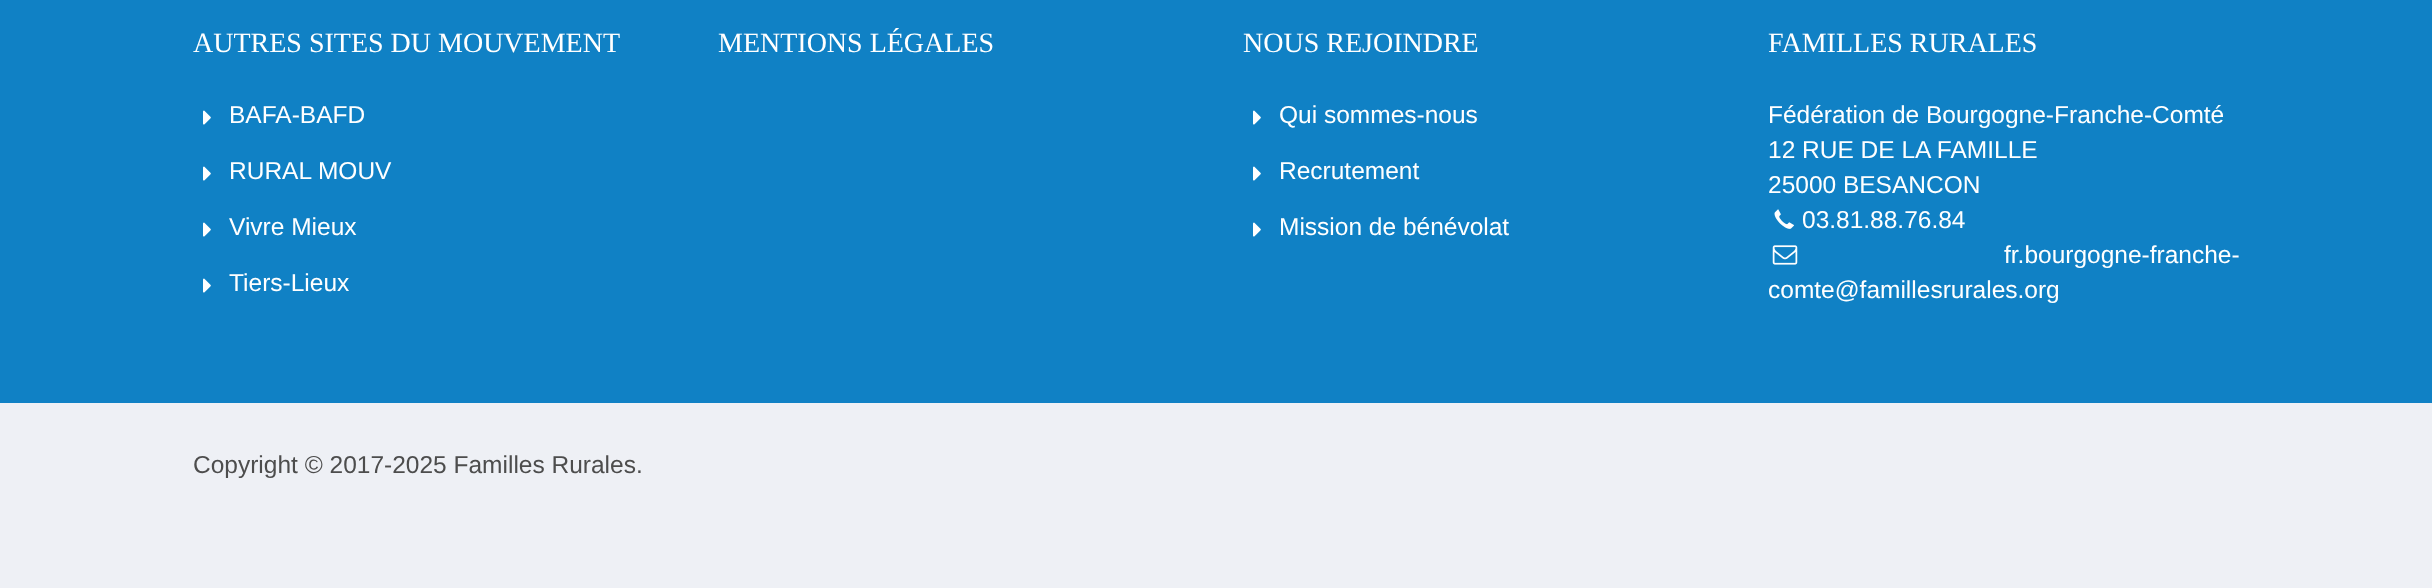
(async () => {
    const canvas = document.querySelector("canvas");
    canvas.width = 2432;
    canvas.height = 588;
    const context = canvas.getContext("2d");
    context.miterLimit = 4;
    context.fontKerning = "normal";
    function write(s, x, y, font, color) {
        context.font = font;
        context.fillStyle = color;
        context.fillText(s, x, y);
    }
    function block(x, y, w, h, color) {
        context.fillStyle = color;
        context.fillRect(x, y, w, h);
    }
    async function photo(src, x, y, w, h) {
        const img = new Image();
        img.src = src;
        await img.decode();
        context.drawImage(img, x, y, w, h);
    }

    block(0, 0, 2432, 588, "rgb(238, 240, 245)");
    block(0, 0, 2432, 403, "rgb(16, 129, 197)");
    write("AUTRES SITES DU MOUVEMENT", 193, 52, "28px Liberation Serif", "rgb(255, 255, 255)");
    await photo("media/1.png", 203, 110, 8, 15);
    write("BAFA-BAFD", 229, 123, "24.5px Liberation Sans", "rgb(255, 255, 255)");
    await photo("media/1.png", 203, 166, 8, 15);
    write("RURAL MOUV", 229, 179, "24.5px Liberation Sans", "rgb(255, 255, 255)");
    await photo("media/1.png", 203, 222, 8, 15);
    write("Vivre Mieux", 229, 235, "24.5px Liberation Sans", "rgb(255, 255, 255)");
    await photo("media/1.png", 203, 278, 8, 15);
    write("Tiers-Lieux", 229, 291, "24.5px Liberation Sans", "rgb(255, 255, 255)");
    write("MENTIONS LÉGALES", 718, 52, "28px Liberation Serif", "rgb(255, 255, 255)");
    write("NOUS REJOINDRE", 1243, 52, "28px Liberation Serif", "rgb(255, 255, 255)");
    await photo("media/1.png", 1253, 110, 8, 15);
    write("Qui sommes-nous", 1279, 123, "24.5px Liberation Sans", "rgb(255, 255, 255)");
    await photo("media/1.png", 1253, 166, 8, 15);
    write("Recrutement", 1279, 179, "24.5px Liberation Sans", "rgb(255, 255, 255)");
    await photo("media/1.png", 1253, 222, 8, 15);
    write("Mission de bénévolat", 1279, 235, "24.5px Liberation Sans", "rgb(255, 255, 255)");
    write("FAMILLES RURALES", 1768, 52, "28px Liberation Serif", "rgb(255, 255, 255)");
    write("Fédération de Bourgogne-Franche-Comté", 1768, 123, "24.5px Liberation Sans", "rgb(255, 255, 255)");
    write("12 RUE DE LA FAMILLE", 1768, 158, "24.5px Liberation Sans", "rgb(255, 255, 255)");
    write("25000 BESANCON", 1768, 193, "24.5px Liberation Sans", "rgb(255, 255, 255)");
    await photo("media/2.png", 1774, 209, 20, 20);
    write("03.81.88.76.84", 1802, 228, "24.5px Liberation Sans", "rgb(255, 255, 255)");
    await photo("media/3.png", 1772, 245, 26, 20);
    write("fr.bourgogne-franche-", 2004, 263, "24.5px Liberation Sans", "rgb(255, 255, 255)");
    write("comte@famillesrurales.org", 1768, 298, "24.5px Liberation Sans", "rgb(255, 255, 255)");
    write("Copyright © 2017-2025 Familles Rurales.", 193, 473, "24.5px Liberation Sans", "rgb(77, 77, 77)");
})();
